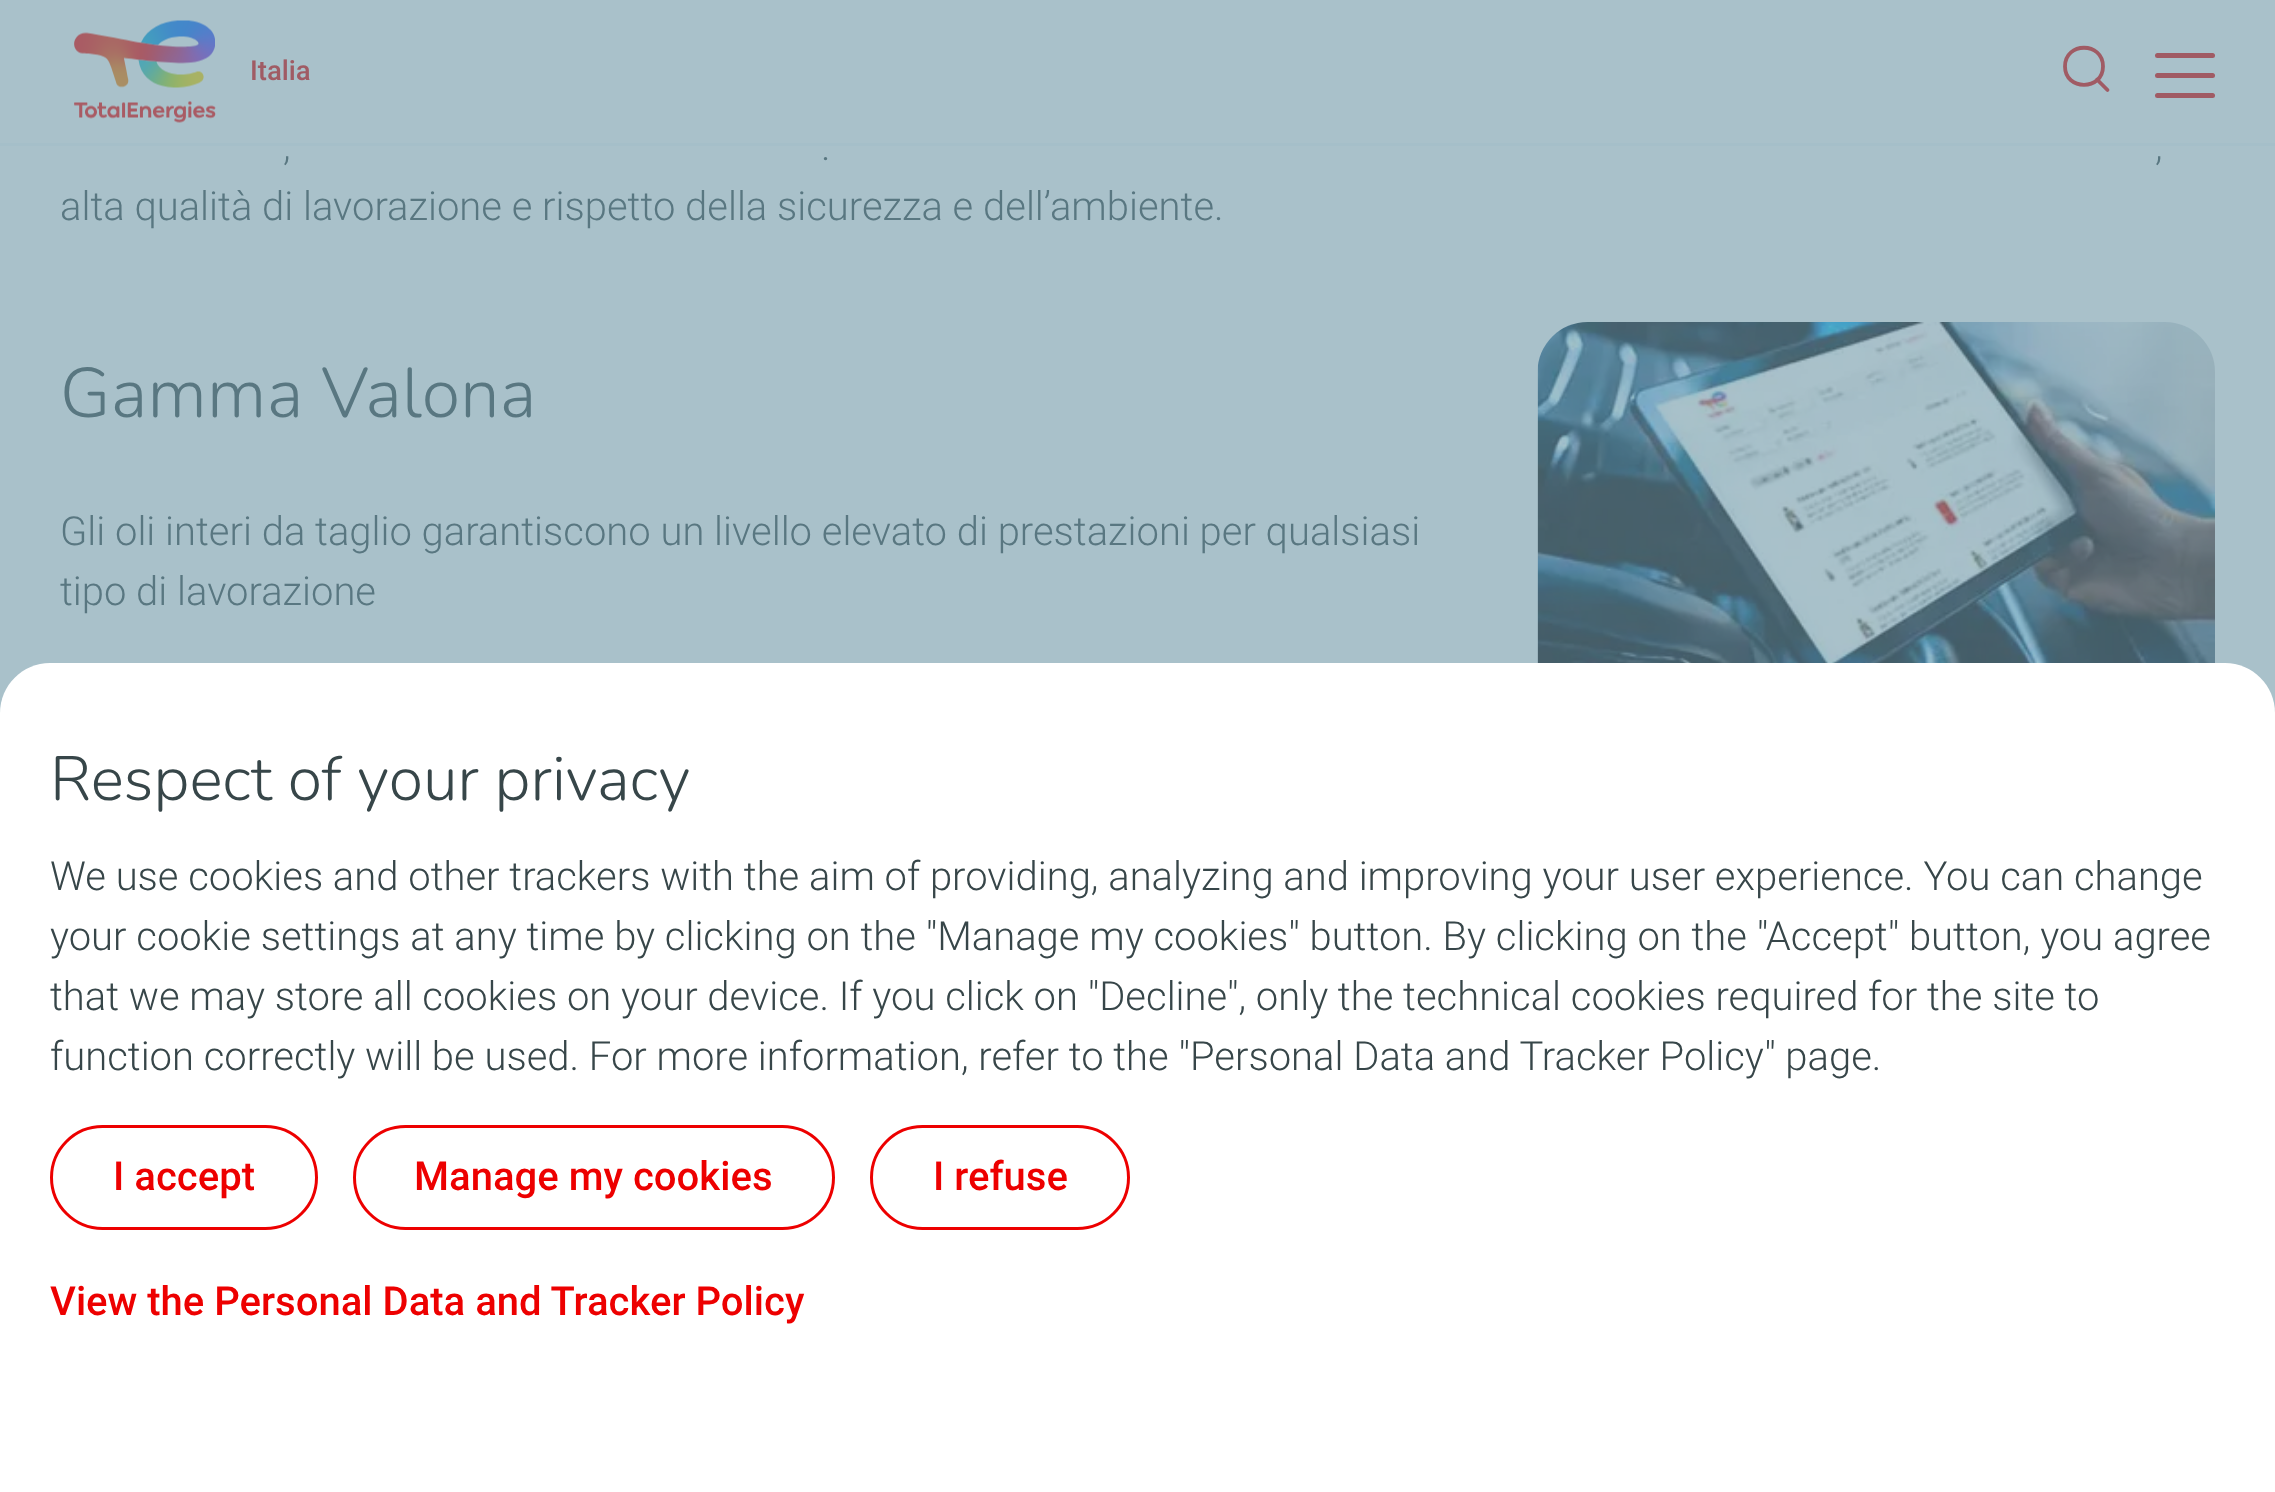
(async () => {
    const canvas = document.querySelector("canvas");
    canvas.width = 2275;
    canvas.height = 1492;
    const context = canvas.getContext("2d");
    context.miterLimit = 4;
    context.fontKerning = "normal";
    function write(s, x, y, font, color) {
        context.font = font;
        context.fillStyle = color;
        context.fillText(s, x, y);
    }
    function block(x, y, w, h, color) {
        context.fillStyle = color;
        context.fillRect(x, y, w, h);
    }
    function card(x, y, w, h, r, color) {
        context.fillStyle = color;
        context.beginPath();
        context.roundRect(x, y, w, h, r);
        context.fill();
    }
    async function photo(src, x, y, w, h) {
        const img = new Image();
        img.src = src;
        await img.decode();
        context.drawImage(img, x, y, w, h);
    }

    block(0, 0, 2275, 1492, "rgb(169, 193, 202)");
    block(0, 143, 2275, 3, "rgb(165, 191, 201)");
    await photo("media/1.png", 74, 20, 142, 103);
    write("Italia", 250, 80, "500 27.5px Roboto", "rgb(160, 91, 100)");
    context.beginPath();
    context.moveTo(2107.5, 90);
    context.lineTo(2097, 79.5);
    context.moveTo(2103, 66.5);
    context.bezierCurveTo(2103, 91, 2065, 91, 2065, 66.5);
    context.bezierCurveTo(2065, 41.5, 2103, 41.5, 2103, 66.5);
    context.closePath();
    context.strokeStyle = "rgb(160, 91, 100)";
    context.lineWidth = 3.8;
    context.lineCap = "round";
    context.lineJoin = "round";
    context.stroke();
    card(2155, 53, 60, 5, 2.5, "rgb(160, 91, 100)");
    card(2155, 73, 60, 5, 2.5, "rgb(160, 91, 100)");
    card(2155, 93, 60, 5, 2.5, "rgb(160, 91, 100)");
    write(",", 283, 160, "300 40px Roboto", "rgb(89, 119, 129)");
    write(".", 821, 160, "300 40px Roboto", "rgb(89, 119, 129)");
    write(",", 2155, 160, "300 40px Roboto", "rgb(89, 119, 129)");
    write("alta qualità di lavorazione e rispetto della sicurezza e dell’ambiente.", 60, 220, "300 40px Roboto", "rgb(89, 119, 129)");
    context.letterSpacing = "0.25px";
    write("Gamma Valona", 60, 417, "300 70px Nunito", "rgb(89, 119, 129)");
    context.letterSpacing = "0px";
    write("Gli oli interi da taglio garantiscono un livello elevato di prestazioni per qualsiasi", 60, 545, "300 40px Roboto", "rgb(89, 119, 129)");
    write("tipo di lavorazione", 60, 605, "300 40px Roboto", "rgb(89, 119, 129)");
    await photo("media/2.png", 1537, 322, 678, 341);
    context.fillStyle = "rgb(255, 255, 255)";
    context.beginPath();
    context.moveTo(50, 663);
    context.lineTo(2225, 663);
    context.bezierCurveTo(2252.5, 663, 2275, 685.5, 2275, 713);
    context.lineTo(2275, 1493);
    context.lineTo(0, 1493);
    context.lineTo(0, 713);
    context.bezierCurveTo(0, 685.5, 22.5, 663, 50, 663);
    context.closePath();
    context.fill();
    write("Respect of your privacy", 50, 800, "300 62.5px Nunito", "rgb(55, 70, 73)");
    write("We use cookies and other trackers with the aim of providing, analyzing and improving your user experience. You can change", 50, 890, "300 40px Roboto", "rgb(55, 70, 73)");
    write("your cookie settings at any time by clicking on the \"Manage my cookies\" button. By clicking on the \"Accept\" button, you agree", 50, 950, "300 40px Roboto", "rgb(55, 70, 73)");
    write("that we may store all cookies on your device. If you click on \"Decline\", only the technical cookies required for the site to", 50, 1010, "300 40px Roboto", "rgb(55, 70, 73)");
    write("function correctly will be used. For more information, refer to the \"Personal Data and Tracker Policy\" page.", 50, 1070, "300 40px Roboto", "rgb(55, 70, 73)");
    context.beginPath();
    context.roundRect(51.5, 1126.5, 265, 102, 51);
    context.strokeStyle = "rgb(237, 0, 0)";
    context.lineWidth = 3;
    context.lineJoin = "miter";
    context.stroke();
    write("I accept", 113, 1190, "500 40px Roboto", "rgb(237, 0, 0)");
    context.beginPath();
    context.roundRect(354.5, 1126.5, 479, 102, 51);
    context.stroke();
    write("Manage my cookies", 414, 1190, "500 40px Roboto", "rgb(237, 0, 0)");
    context.beginPath();
    context.roundRect(871.5, 1126.5, 257, 102, 51);
    context.stroke();
    write("I refuse", 933, 1190, "500 40px Roboto", "rgb(237, 0, 0)");
    write("View the Personal Data and Tracker Policy", 50, 1315, "500 40px Roboto", "rgb(237, 0, 0)");
})();
